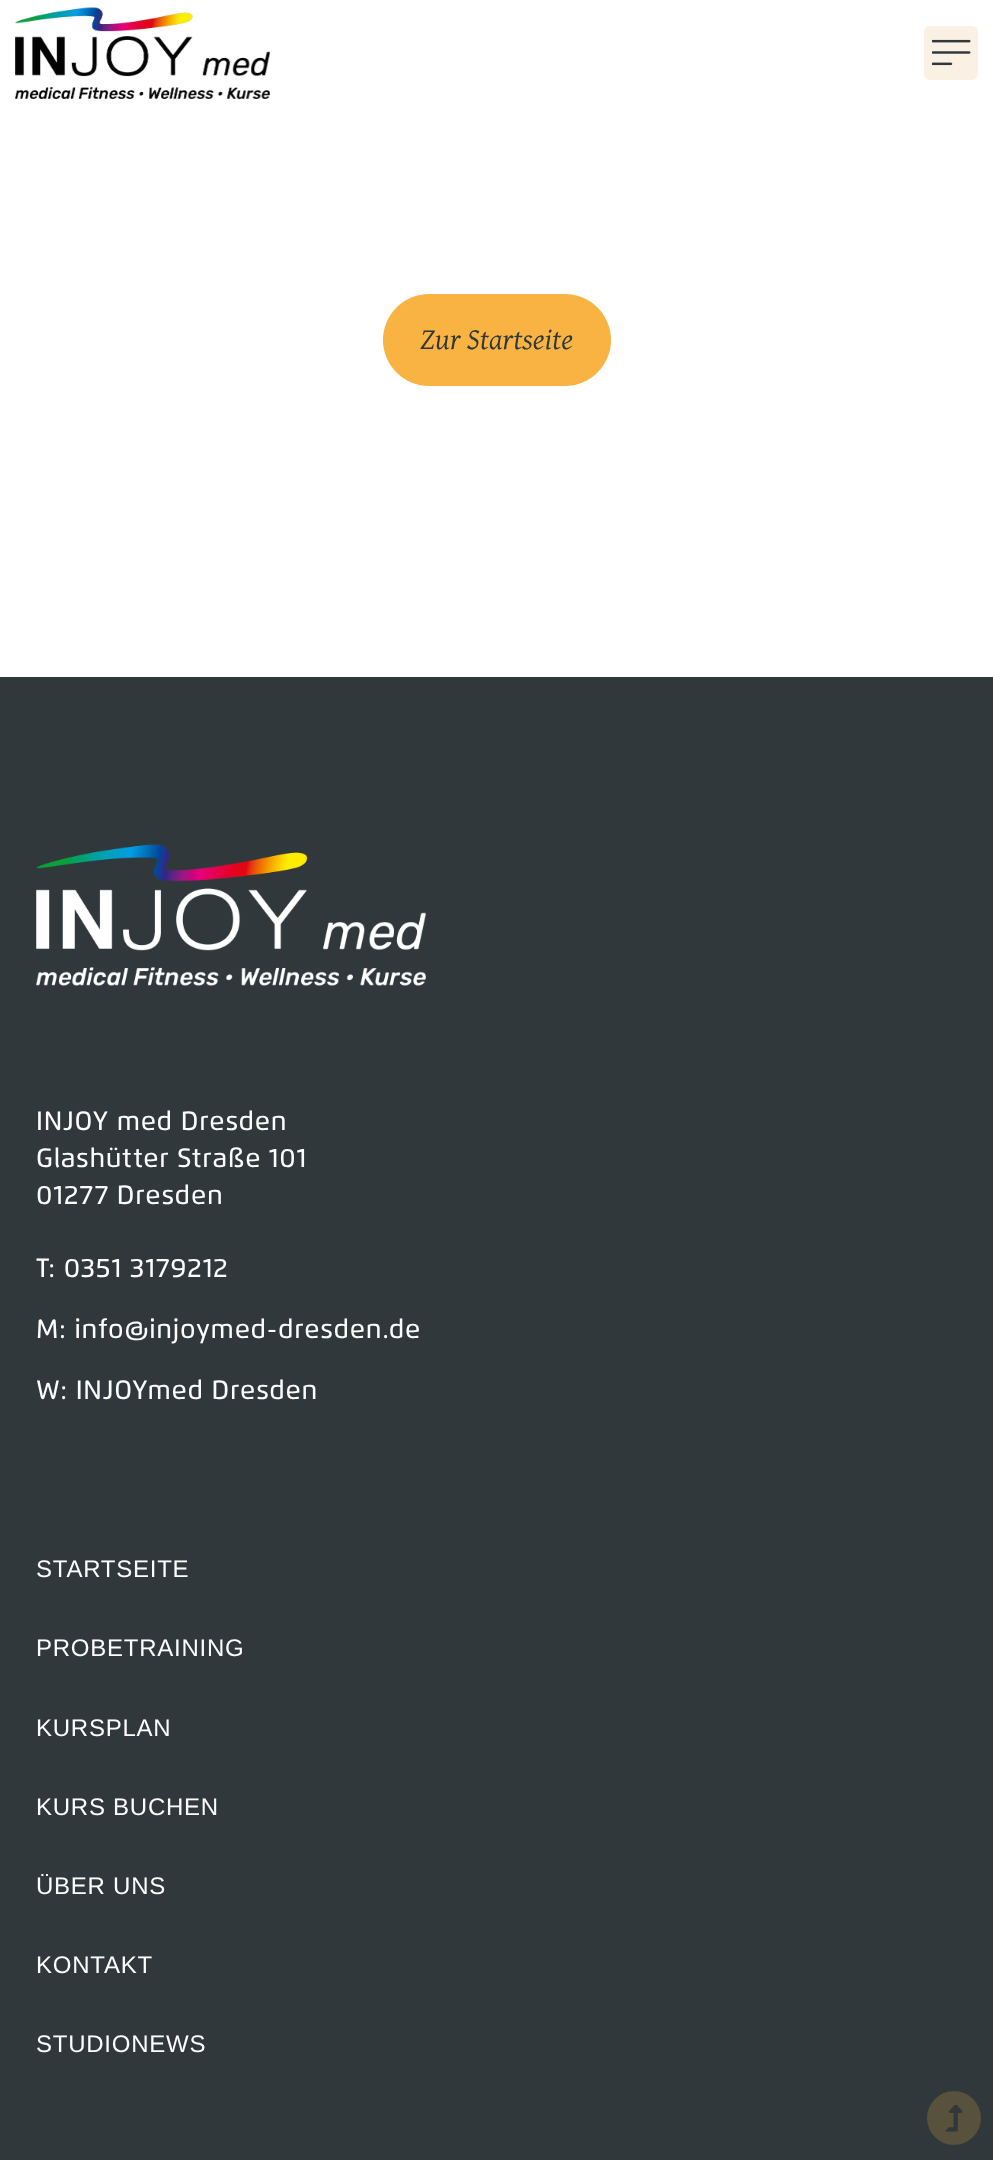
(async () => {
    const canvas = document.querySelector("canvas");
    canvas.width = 993;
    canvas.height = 2160;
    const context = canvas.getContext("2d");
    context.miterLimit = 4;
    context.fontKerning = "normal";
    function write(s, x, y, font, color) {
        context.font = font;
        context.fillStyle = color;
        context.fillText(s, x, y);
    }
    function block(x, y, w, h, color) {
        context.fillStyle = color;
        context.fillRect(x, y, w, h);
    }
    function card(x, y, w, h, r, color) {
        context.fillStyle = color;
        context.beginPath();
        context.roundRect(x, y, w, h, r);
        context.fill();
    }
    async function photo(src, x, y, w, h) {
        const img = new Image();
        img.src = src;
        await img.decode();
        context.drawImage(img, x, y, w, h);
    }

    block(0, 0, 993, 2160, "rgb(255, 255, 255)");
    await photo("media/1.png", 15, 7, 255, 92);
    card(924, 26, 54, 54, 6, "rgb(250, 241, 228)");
    await photo("media/2.png", 932, 39, 39, 27);
    card(383, 294, 228, 92, 46, "rgb(249, 179, 66)");
    write("Zur Startseite", 420, 349, "italic 30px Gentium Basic", "rgb(48, 56, 59)");
    block(0, 677, 993, 1483, "rgb(48, 56, 59)");
    await photo("media/3.png", 36, 844, 390, 142);
    context.letterSpacing = "0.75px";
    write("INJOY med Dresden", 36, 1130, "500 26.4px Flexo", "rgb(253, 252, 252)");
    write("Glashütter Straße 101", 36, 1167, "500 26.4px Flexo", "rgb(253, 252, 252)");
    write("01277 Dresden", 36, 1204, "500 26.4px Flexo", "rgb(253, 252, 252)");
    write("T: 0351 3179212", 36, 1277, "500 26.4px Flexo", "rgb(253, 252, 252)");
    write("M: info@injoymed-dresden.de", 36, 1338, "500 26.4px Flexo", "rgb(253, 252, 252)");
    write("W: INJOYmed Dresden", 36, 1399, "500 26.4px Flexo", "rgb(253, 252, 252)");
    write("STARTSEITE", 36, 1577, "24px Liberation Sans", "rgb(253, 252, 252)");
    write("PROBETRAINING", 36, 1656, "24px Liberation Sans", "rgb(253, 252, 252)");
    write("KURSPLAN", 36, 1736, "24px Liberation Sans", "rgb(253, 252, 252)");
    write("KURS BUCHEN", 36, 1815, "24px Liberation Sans", "rgb(253, 252, 252)");
    write("ÜBER UNS", 36, 1894, "24px Liberation Sans", "rgb(253, 252, 252)");
    write("KONTAKT", 36, 1973, "24px Liberation Sans", "rgb(253, 252, 252)");
    write("STUDIONEWS", 36, 2052, "24px Liberation Sans", "rgb(253, 252, 252)");
    context.fillStyle = "rgb(88, 81, 60)";
    context.beginPath();
    context.arc(954, 2118, 27, 0, Math.PI * 2);
    context.fill();
    await photo("media/4.png", 945, 2105, 18, 27);
})();
